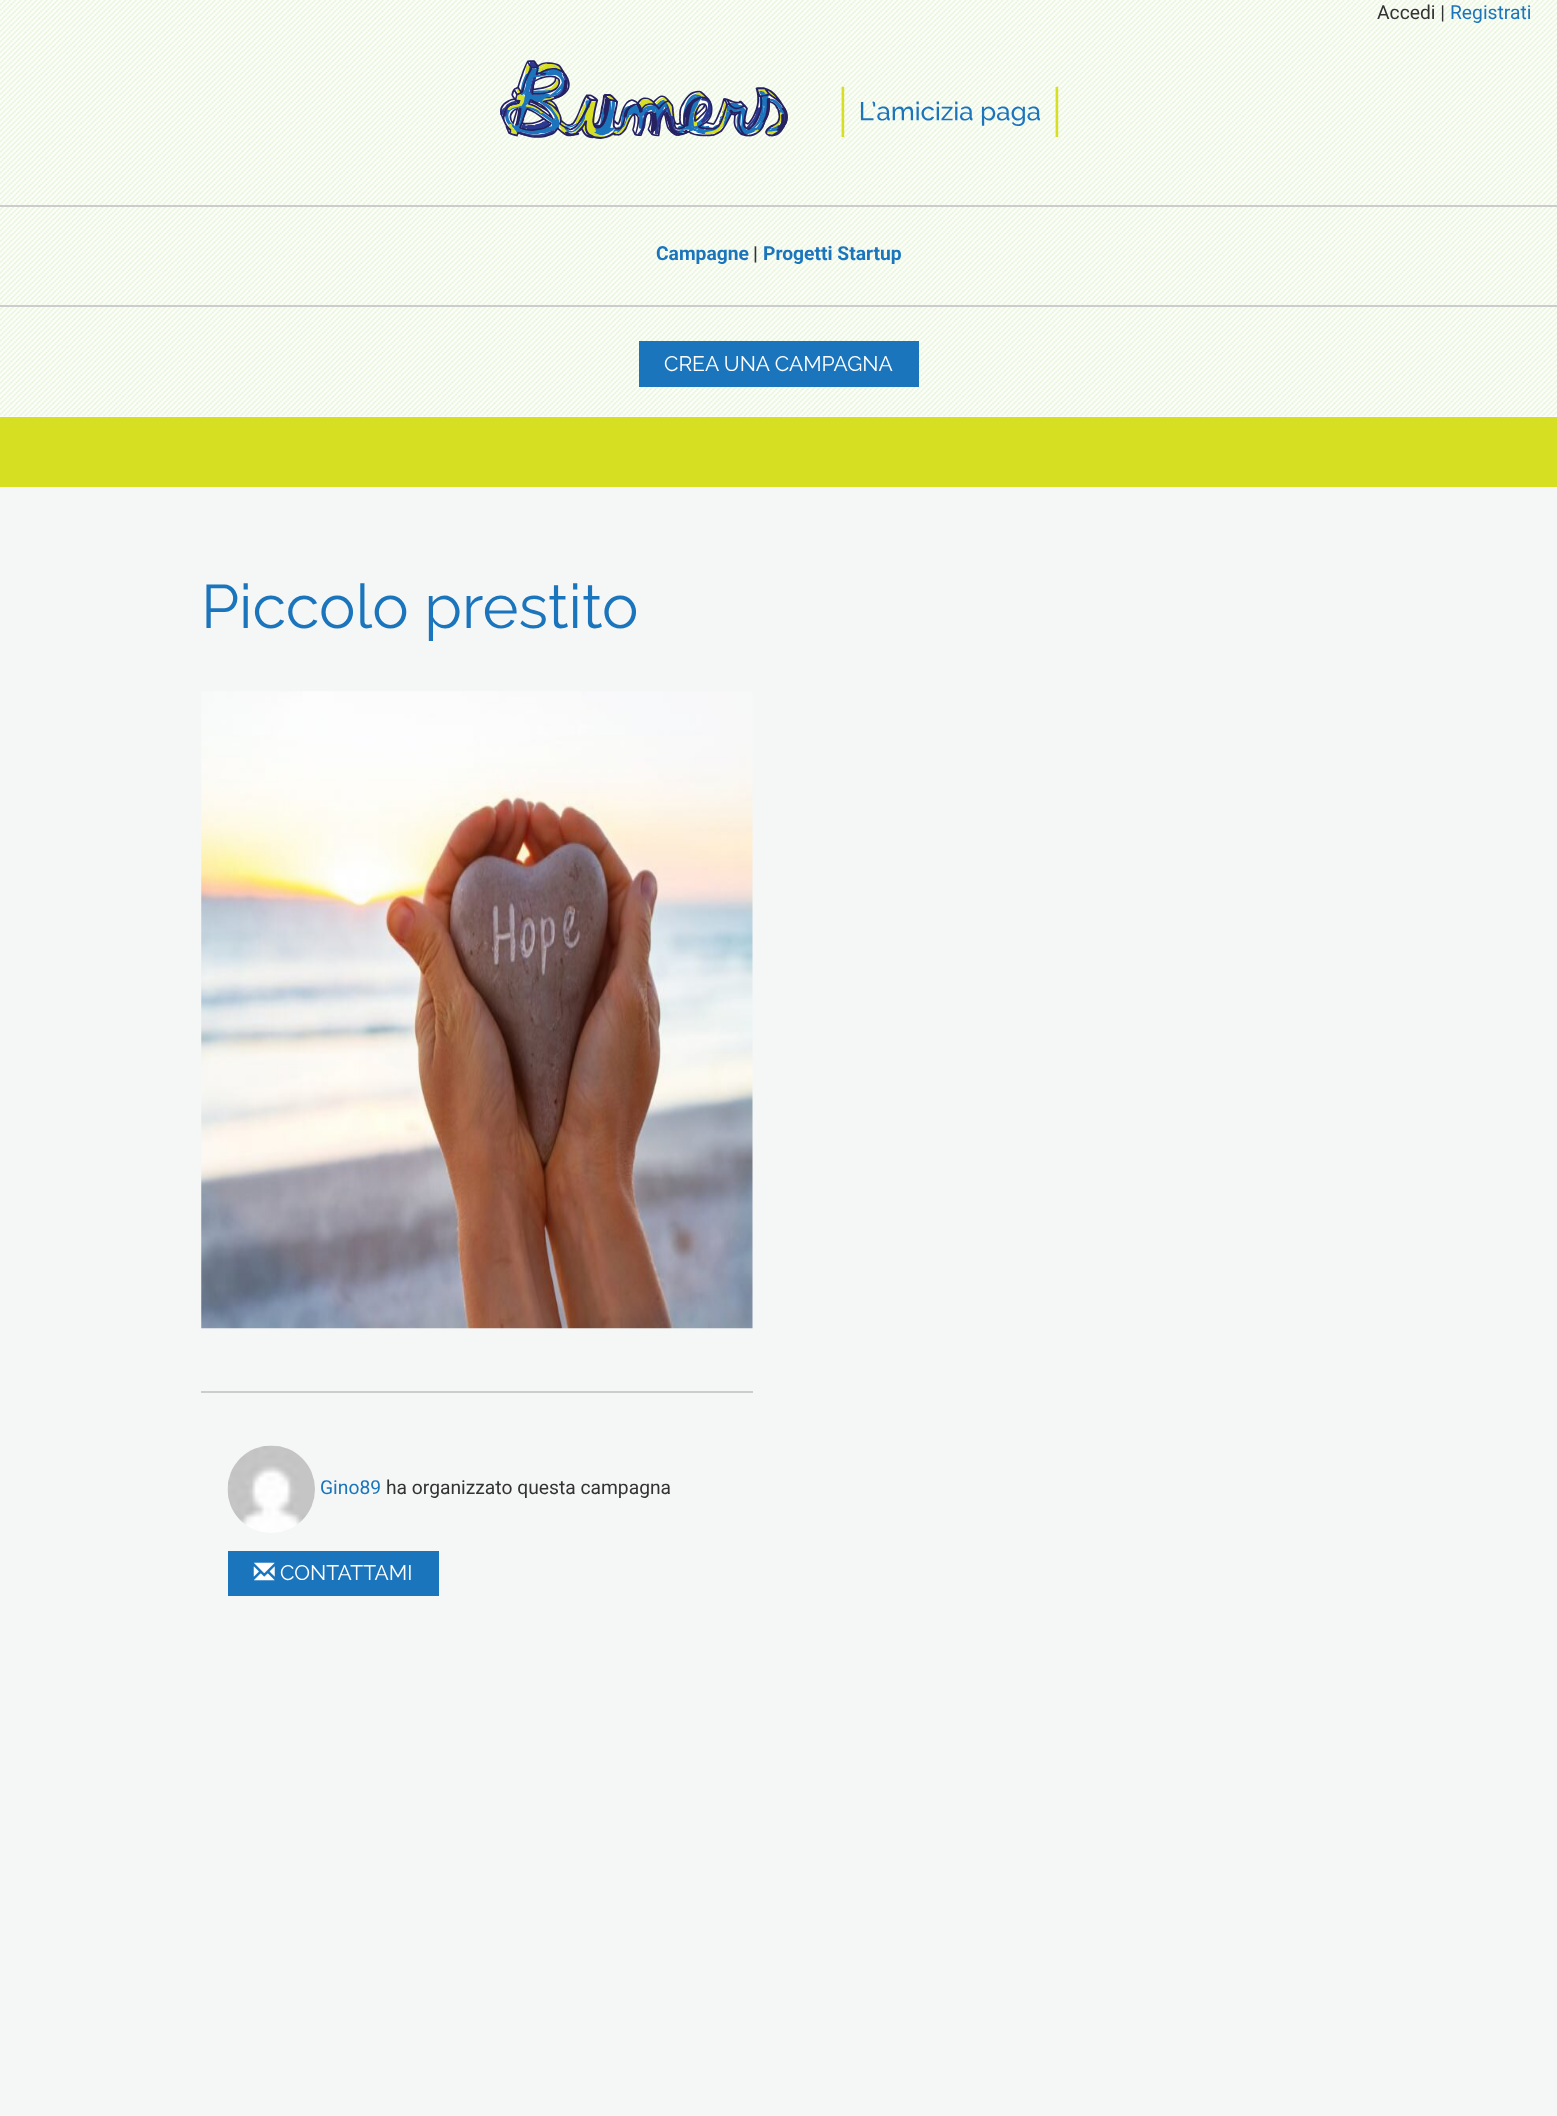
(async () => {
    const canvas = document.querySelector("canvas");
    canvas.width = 1557;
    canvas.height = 2116;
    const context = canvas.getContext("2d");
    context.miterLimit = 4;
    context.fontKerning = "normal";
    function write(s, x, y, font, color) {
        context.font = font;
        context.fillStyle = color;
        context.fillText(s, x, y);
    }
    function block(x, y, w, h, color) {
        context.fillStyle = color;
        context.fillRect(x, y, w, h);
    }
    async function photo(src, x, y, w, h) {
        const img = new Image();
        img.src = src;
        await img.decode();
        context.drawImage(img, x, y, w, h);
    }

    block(0, 0, 1557, 2116, "rgb(245, 246, 246)");
    block(0, 0, 1557, 417, "rgb(255, 255, 255)");
    await photo("media/1.png", 0, 0, 1557, 417);
    write("Accedi |", 1377, 19, "19.25px Roboto", "rgb(51, 51, 51)");
    write("Registrati", 1450, 19, "19.25px Roboto", "rgb(27, 117, 188)");
    await photo("media/2.png", 500, 60, 559, 79);
    block(0, 205, 1557, 2, "rgb(204, 204, 204)");
    write("Campagne", 656, 260, "bold 19.25px Roboto", "rgb(27, 117, 188)");
    write("|", 753, 260, "bold 19.25px Roboto", "rgb(51, 51, 51)");
    write("Progetti Startup", 763, 260, "bold 19.25px Roboto", "rgb(27, 117, 188)");
    block(0, 305, 1557, 2, "rgb(204, 204, 204)");
    block(639, 341, 280, 46, "rgb(27, 117, 188)");
    write("CREA UNA CAMPAGNA", 664, 371, "21px Raleway", "rgb(255, 255, 255)");
    block(0, 417, 1557, 70, "rgb(215, 223, 35)");
    write("Piccolo prestito", 201, 628, "61.25px Raleway", "rgb(27, 117, 188)");
    await photo("media/3.png", 201, 691, 552, 638);
    block(201, 1391, 552, 2, "rgb(204, 204, 204)");
    await photo("media/4.png", 227, 1445, 88, 88);
    write("Gino89", 320, 1494, "19.25px Roboto", "rgb(27, 117, 188)");
    write("ha organizzato questa campagna", 386, 1494, "19.25px Roboto", "rgb(51, 51, 51)");
    block(228, 1551, 211, 45, "rgb(27, 117, 188)");
    await photo("media/5.png", 253, 1562, 22, 19);
    write("CONTATTAMI", 280, 1580, "21px Raleway", "rgb(255, 255, 255)");
})();
